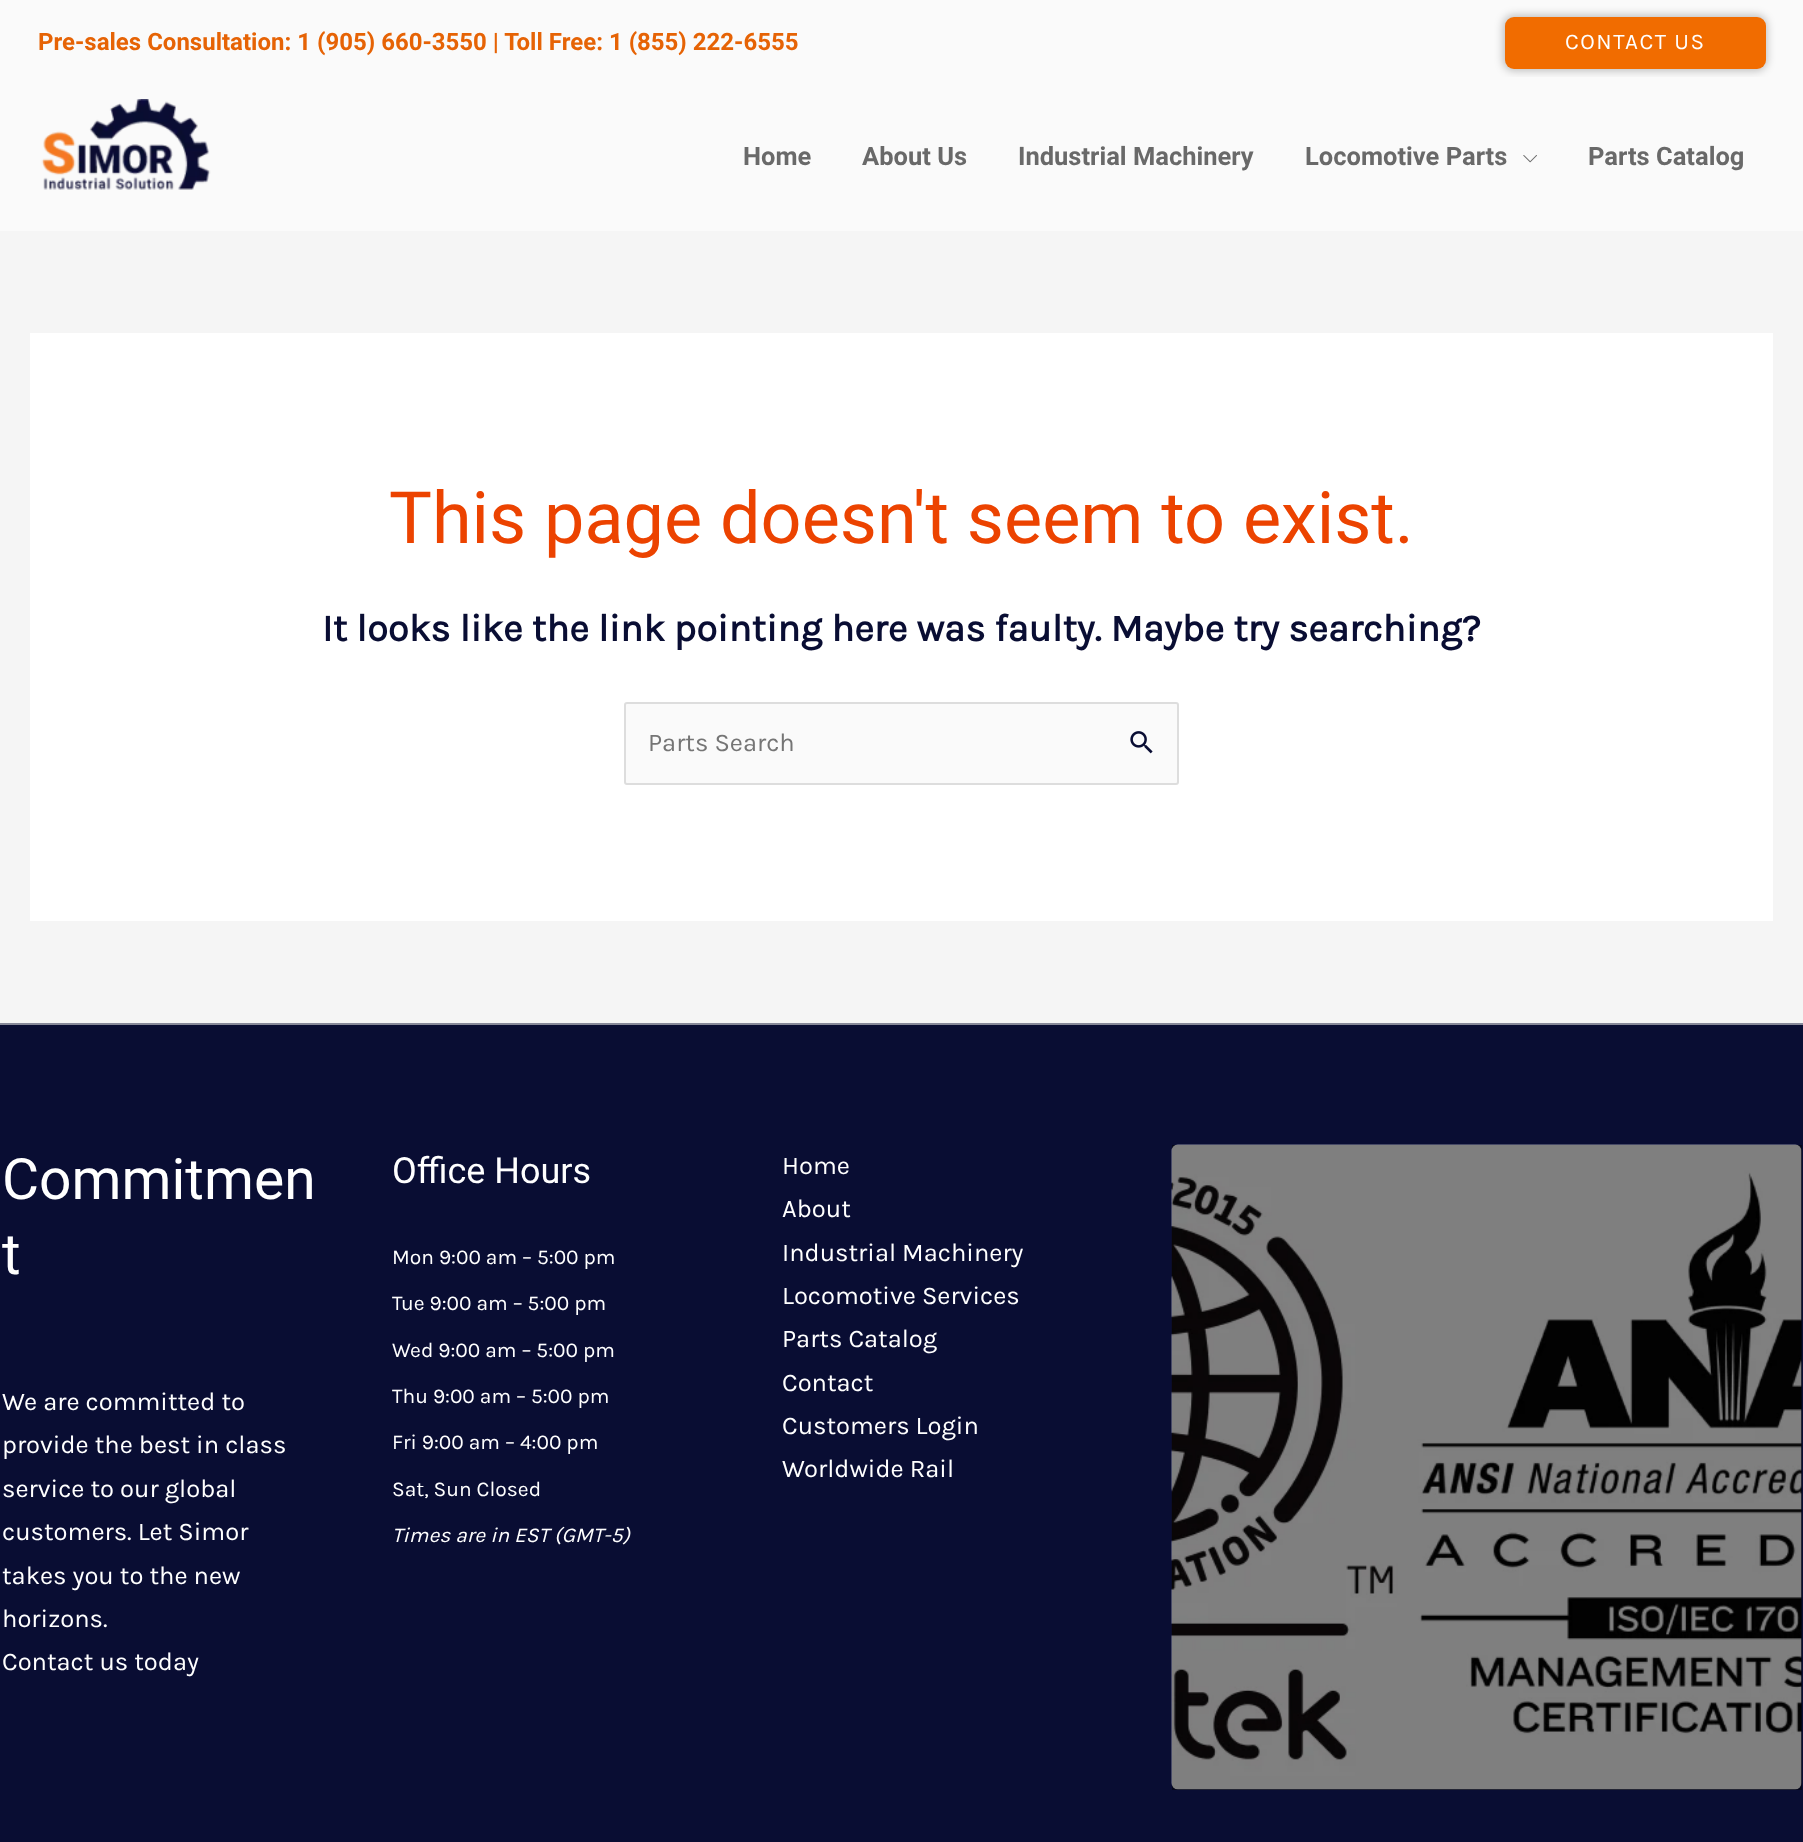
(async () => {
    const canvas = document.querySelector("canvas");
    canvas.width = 1803;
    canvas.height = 1842;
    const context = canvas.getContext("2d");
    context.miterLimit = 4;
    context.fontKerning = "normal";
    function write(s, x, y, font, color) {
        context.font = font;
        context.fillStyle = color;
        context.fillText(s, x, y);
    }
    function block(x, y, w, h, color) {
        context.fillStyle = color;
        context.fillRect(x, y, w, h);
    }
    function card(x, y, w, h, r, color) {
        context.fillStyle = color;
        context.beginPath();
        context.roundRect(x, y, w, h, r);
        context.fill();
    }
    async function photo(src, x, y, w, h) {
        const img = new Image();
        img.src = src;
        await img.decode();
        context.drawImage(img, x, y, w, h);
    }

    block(0, 0, 1803, 1842, "rgb(245, 245, 245)");
    block(0, 0, 1803, 77, "rgb(250, 250, 250)");
    write("Pre-sales Consultation: 1 (905) 660-3550 | Toll Free: 1 (855) 222-6555", 38, 50, "bold 24px Roboto", "rgb(230, 99, 5)");
    context.fillStyle = "rgba(0, 0, 0, 0.24)";
    context.filter = "blur(4px)";
    context.beginPath();
    context.roundRect(1503, 15, 264, 56, 11);
    context.fill();
    context.filter = "none";
    card(1505, 17, 261, 52, 9, "rgb(241, 108, 0)");
    context.letterSpacing = "1.5px";
    write("CONTACT US", 1565, 49, "22.5px Karla", "rgb(255, 255, 255)");
    block(0, 77, 1803, 154, "rgb(250, 250, 250)");
    await photo("media/1.png", 41, 99, 170, 91);
    context.letterSpacing = "0px";
    write("Home", 743, 165, "bold 25.5px Roboto", "rgb(105, 105, 105)");
    write("About Us", 862, 165, "bold 25.5px Roboto", "rgb(105, 105, 105)");
    write("Industrial Machinery", 1018, 165, "bold 25.5px Roboto", "rgb(105, 105, 105)");
    write("Locomotive Parts", 1305, 165, "bold 25.5px Roboto", "rgb(105, 105, 105)");
    await photo("media/2.png", 1523, 155, 14, 8);
    write("Parts Catalog", 1588, 165, "bold 25.5px Roboto", "rgb(105, 105, 105)");
    block(30, 333, 1743, 588, "rgb(255, 255, 255)");
    write("This page doesn't seem to exist.", 389, 543, "72px Roboto", "rgb(236, 67, 0)");
    write("It looks like the link pointing here was faulty. Maybe try searching?", 322, 641, "bold 38.25px Karla", "rgb(9, 13, 51)");
    context.fillStyle = "rgb(250, 250, 250)";
    context.beginPath();
    context.roundRect(625, 703, 553, 81, 2);
    context.fill();
    context.strokeStyle = "rgb(221, 221, 221)";
    context.lineWidth = 2;
    context.stroke();
    write("Parts Search", 648, 751, "25.5px Karla", "rgb(117, 117, 117)");
    await photo("media/3.png", 1130, 731, 23, 23);
    block(0, 1025, 1803, 817, "rgb(9, 13, 51)");
    block(1172, 1145, 630, 645, "rgb(5, 7, 26)");
    block(0, 1023, 1803, 2, "rgb(135, 137, 153)");
    write("Commitmen", 2, 1199, "57px Roboto", "rgb(255, 255, 255)");
    write("t", 2, 1274, "57px Roboto", "rgb(255, 255, 255)");
    write("We are committed to", 2, 1410, "25.5px Karla", "rgb(255, 255, 255)");
    write("provide the best in class", 2, 1453, "25.5px Karla", "rgb(255, 255, 255)");
    write("service to our global", 2, 1497, "25.5px Karla", "rgb(255, 255, 255)");
    write("customers. Let Simor", 2, 1540, "25.5px Karla", "rgb(255, 255, 255)");
    write("takes you to the new", 2, 1584, "25.5px Karla", "rgb(255, 255, 255)");
    write("horizons.", 2, 1627, "25.5px Karla", "rgb(255, 255, 255)");
    write("Contact us today", 2, 1670, "25.5px Karla", "rgb(255, 255, 255)");
    write("Office Hours", 392, 1183, "36px Roboto", "rgb(255, 255, 255)");
    write("Mon 9:00 am – 5:00 pm", 392, 1264, "21px Karla", "rgb(255, 255, 255)");
    write("Tue 9:00 am – 5:00 pm", 392, 1310, "21px Karla", "rgb(255, 255, 255)");
    write("Wed 9:00 am – 5:00 pm", 392, 1357, "21px Karla", "rgb(255, 255, 255)");
    write("Thu 9:00 am – 5:00 pm", 392, 1403, "21px Karla", "rgb(255, 255, 255)");
    write("Fri 9:00 am – 4:00 pm", 392, 1449, "21px Karla", "rgb(255, 255, 255)");
    write("Sat, Sun Closed", 392, 1496, "21px Karla", "rgb(255, 255, 255)");
    write("Times are in EST (GMT-5)", 392, 1542, "italic 21px Karla", "rgb(255, 255, 255)");
    write("Home", 782, 1174, "25.5px Karla", "rgb(255, 255, 255)");
    write("About", 782, 1217, "25.5px Karla", "rgb(255, 255, 255)");
    write("Industrial Machinery", 782, 1261, "25.5px Karla", "rgb(255, 255, 255)");
    write("Locomotive Services", 782, 1304, "25.5px Karla", "rgb(255, 255, 255)");
    write("Parts Catalog", 782, 1347, "25.5px Karla", "rgb(255, 255, 255)");
    write("Contact", 782, 1391, "25.5px Karla", "rgb(255, 255, 255)");
    write("Customers Login", 782, 1434, "25.5px Karla", "rgb(255, 255, 255)");
    write("Worldwide Rail", 782, 1477, "25.5px Karla", "rgb(255, 255, 255)");
    await photo("media/4.png", 1171, 1144, 631, 646);
})();
